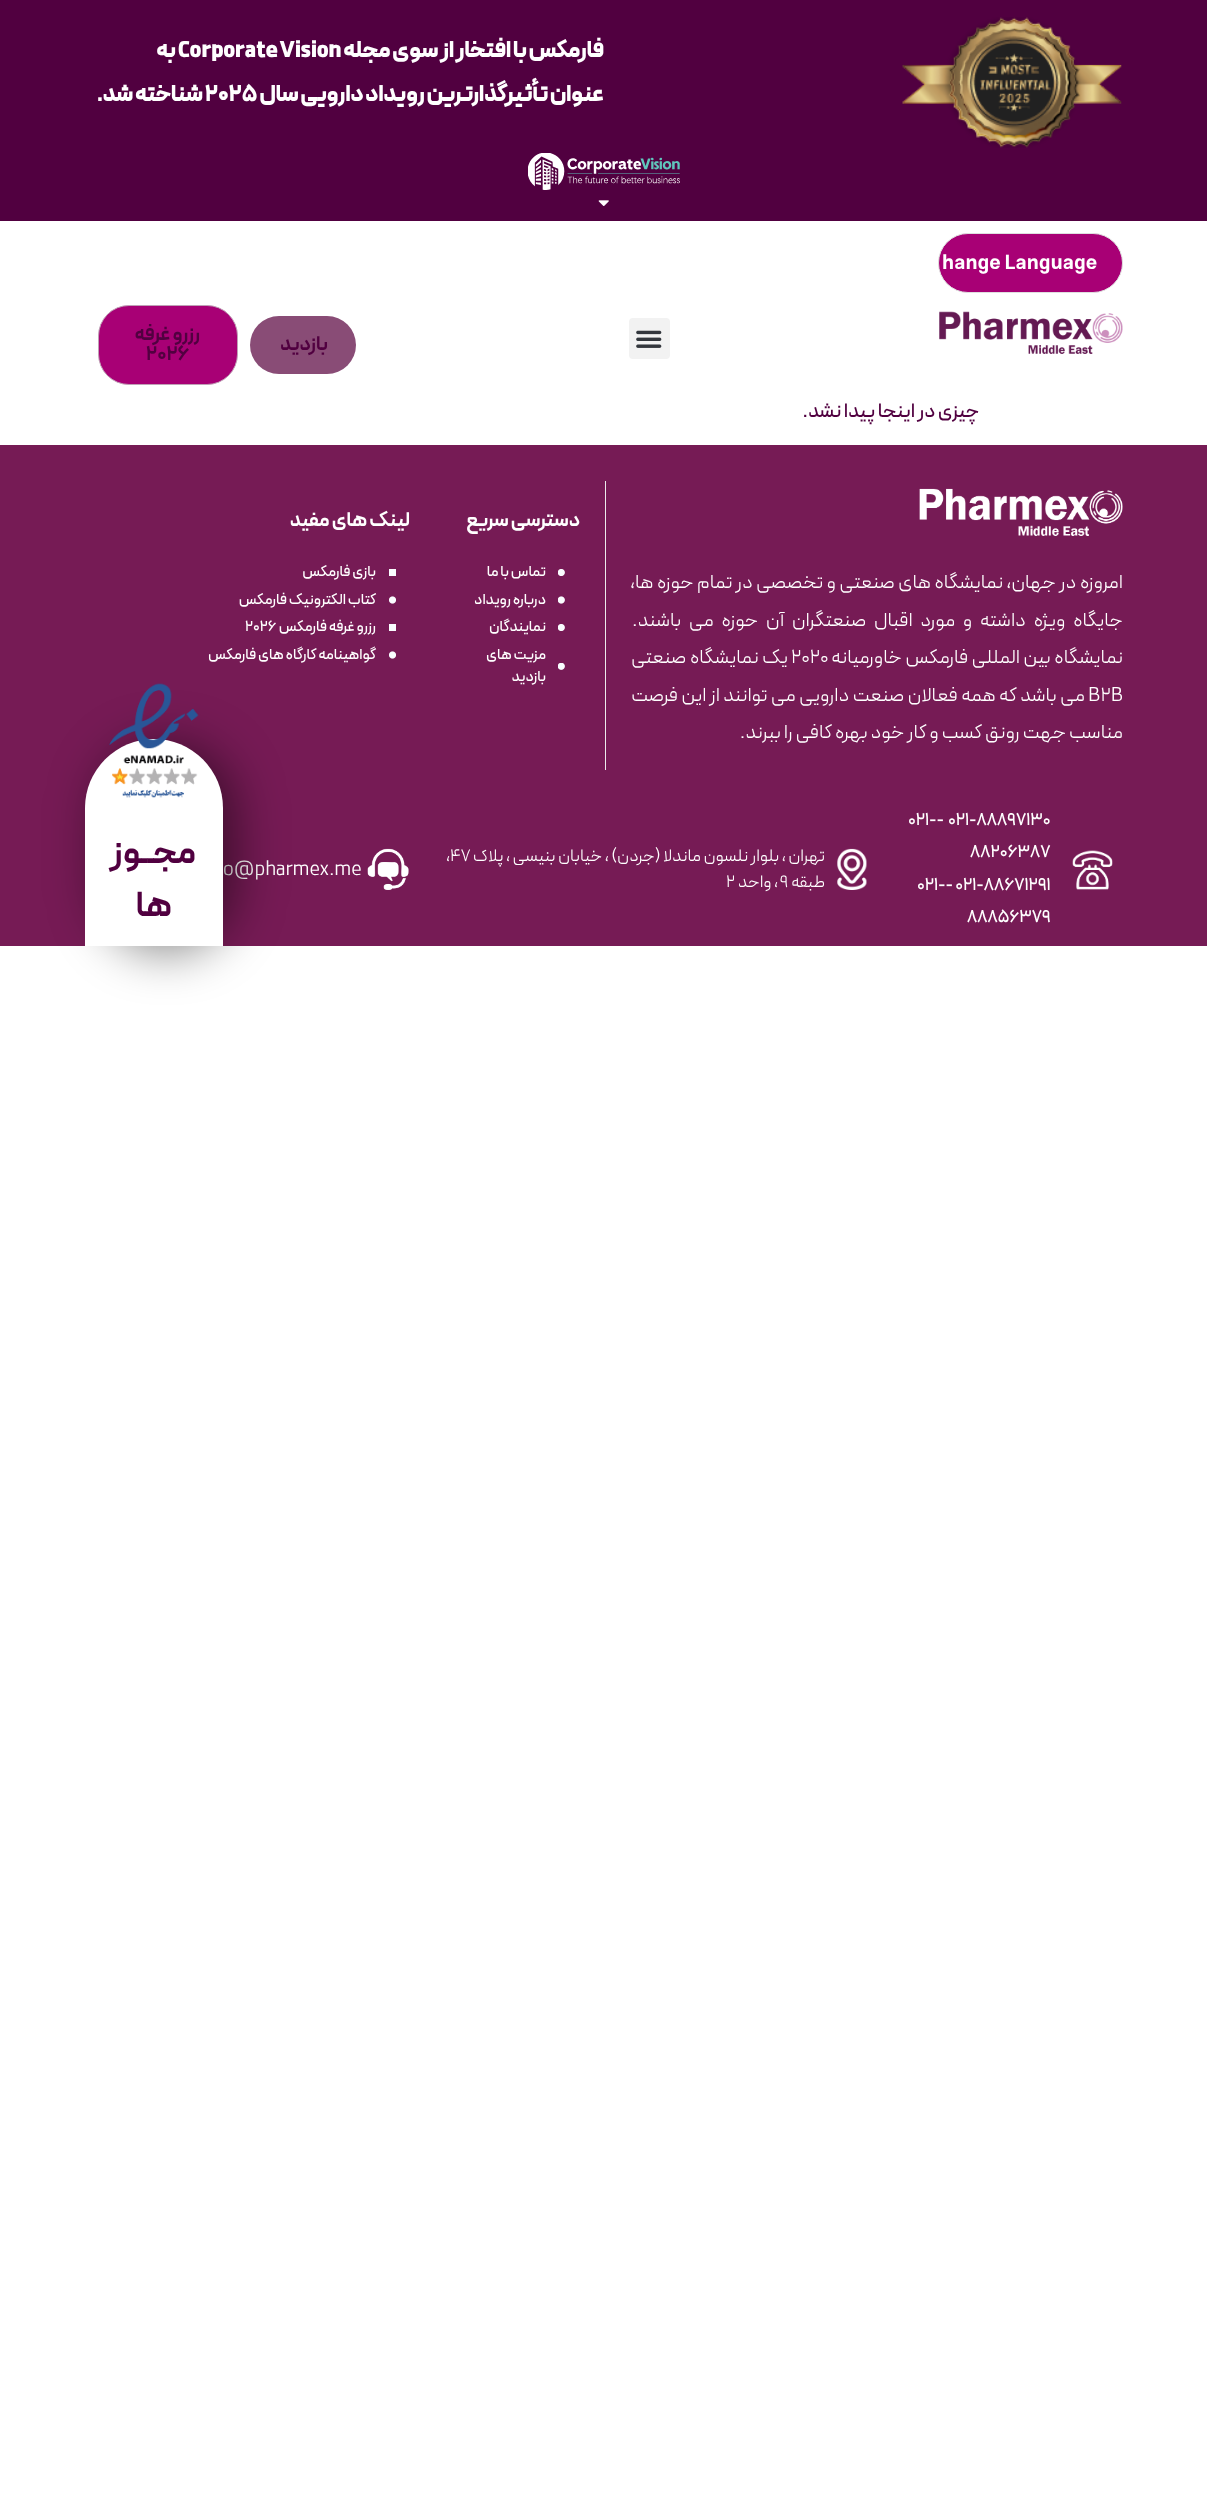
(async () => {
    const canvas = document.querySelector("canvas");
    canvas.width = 1207;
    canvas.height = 2505;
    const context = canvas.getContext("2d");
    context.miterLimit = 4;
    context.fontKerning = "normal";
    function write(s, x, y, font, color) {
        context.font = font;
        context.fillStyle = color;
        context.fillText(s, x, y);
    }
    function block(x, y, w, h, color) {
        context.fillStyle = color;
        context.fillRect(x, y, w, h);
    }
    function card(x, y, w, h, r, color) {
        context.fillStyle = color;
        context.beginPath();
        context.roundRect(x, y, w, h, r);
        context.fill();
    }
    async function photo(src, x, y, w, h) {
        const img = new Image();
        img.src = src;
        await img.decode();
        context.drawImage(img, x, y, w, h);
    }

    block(0, 0, 1207, 2505, "rgb(255, 255, 255)");
    block(0, 0, 1207, 221, "rgb(81, 0, 64)");
    await photo("media/1.png", 902, 17, 220, 131);
    context.direction = "rtl";
    write("فارمکس با افتخار از سوی مجله", 604, 57, "900 22.5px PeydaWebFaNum", "rgb(255, 255, 255)");
    context.direction = "ltr";
    write("Corporate Vision", 178, 57, "900 22.5px PeydaWebFaNum", "rgb(255, 255, 255)");
    context.direction = "rtl";
    write("به", 176, 57, "900 22.5px PeydaWebFaNum", "rgb(255, 255, 255)");
    write("عنوان تأثیرگذارترین رویداد دارویی سال", 604, 101, "900 22.5px PeydaWebFaNum", "rgb(255, 255, 255)");
    context.direction = "ltr";
    write("۲۰۲۵", 205, 101, "900 22.5px PeydaWebFaNum", "rgb(255, 255, 255)");
    context.direction = "rtl";
    write("شناخته شد.", 203, 101, "900 22.5px PeydaWebFaNum", "rgb(255, 255, 255)");
    await photo("media/2.png", 528, 153, 152, 37);
    await photo("media/3.png", 598, 200, 11, 6);
    context.fillStyle = "rgb(168, 0, 117)";
    context.beginPath();
    context.roundRect(938.5, 233.5, 184, 59, 29.5);
    context.fill();
    context.strokeStyle = "rgb(223, 223, 223)";
    context.stroke();
    context.direction = "ltr";
    write("hange Language", 942, 269, "bold 20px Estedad", "rgb(255, 255, 255)");
    await photo("media/4.png", 939, 311, 184, 43);
    card(629, 318, 41, 41, 4, "rgb(242, 242, 242)");
    await photo("media/5.png", 636, 330, 26, 18);
    card(250, 316, 106, 58, 29, "rgb(137, 76, 118)");
    context.direction = "rtl";
    write("بازدید", 328, 350, "bold 20px PeydaWebFaNum", "rgb(81, 0, 64)");
    context.fillStyle = "rgb(168, 0, 117)";
    context.beginPath();
    context.roundRect(98.5, 305.5, 139, 79, 30.5);
    context.fill();
    context.strokeStyle = "rgb(191, 161, 182)";
    context.stroke();
    write("رزرو غرفه", 200, 340, "bold 20px PeydaWebFaNum", "rgb(81, 0, 64)");
    context.direction = "ltr";
    write("2026", 146, 360, "bold 20px PeydaWebFaNum", "rgb(81, 0, 64)");
    context.direction = "rtl";
    write("چیزی در اینجا پیدا نشد.", 979, 417, "500 20px PeydaWebFaNum", "rgb(81, 0, 64)");
    block(0, 445, 1207, 501, "rgb(118, 27, 85)");
    block(605, 481, 1, 289, "rgb(235, 235, 235)");
    await photo("media/6.png", 919, 488, 204, 48);
    context.wordSpacing = "0.5px";
    write("امروزه در جهان، نمایشگاه های صنعتی و تخصصی در تمام حوزه ها،", 1123, 588, "300 20px PeydaWebFaNum", "rgb(255, 255, 255)");
    context.wordSpacing = "4.75px";
    write("جایگاه ویژه داشته و مورد اقبال صنعتگران آن حوزه می باشند.", 1123, 626, "300 20px PeydaWebFaNum", "rgb(255, 255, 255)");
    context.wordSpacing = "0.5px";
    write("نمایشگاه بین المللی فارمکس خاورمیانه", 1123, 663, "300 20px PeydaWebFaNum", "rgb(255, 255, 255)");
    context.wordSpacing = "0px";
    context.direction = "ltr";
    write("2020", 791, 663, "300 20px PeydaWebFaNum", "rgb(255, 255, 255)");
    context.wordSpacing = "0.5px";
    context.direction = "rtl";
    write("یک نمایشگاه صنعتی", 788, 663, "300 20px PeydaWebFaNum", "rgb(255, 255, 255)");
    context.wordSpacing = "0px";
    context.direction = "ltr";
    write("B2B", 1088, 701, "300 20px PeydaWebFaNum", "rgb(255, 255, 255)");
    context.wordSpacing = "0.4px";
    context.direction = "rtl";
    write("می باشد که همه فعالان صنعت دارویی می توانند از این فرصت", 1085, 701, "300 20px PeydaWebFaNum", "rgb(255, 255, 255)");
    context.wordSpacing = "0px";
    write("مناسب جهت رونق کسب و کار خود بهره کافی را ببرند.", 1123, 738, "300 20px PeydaWebFaNum", "rgb(255, 255, 255)");
    write("دسترسی سریع", 580, 526, "bold 20px PeydaWebFaNum", "rgb(255, 255, 255)");
    await photo("media/7.png", 558, 569, 7, 7);
    write("تماس با ما", 546, 576, "500 15px PeydaWebFaNum", "rgb(255, 255, 255)");
    await photo("media/8.png", 558, 596, 7, 8);
    write("درباره رویداد", 546, 604, "500 15px PeydaWebFaNum", "rgb(255, 255, 255)");
    await photo("media/7.png", 558, 624, 7, 7);
    write("نمایندگان", 546, 631, "500 15px PeydaWebFaNum", "rgb(255, 255, 255)");
    await photo("media/9.png", 558, 663, 7, 7);
    write("مزیت های", 546, 659, "500 15px PeydaWebFaNum", "rgb(255, 255, 255)");
    write("بازدید", 546, 681, "500 15px PeydaWebFaNum", "rgb(255, 255, 255)");
    write("لینک های مفید", 410, 526, "bold 20px PeydaWebFaNum", "rgb(255, 255, 255)");
    block(389, 569, 7, 7, "rgb(250, 253, 255)");
    write("بازی فارمکس", 376, 576, "500 15px PeydaWebFaNum", "rgb(255, 255, 255)");
    await photo("media/10.png", 389, 596, 7, 8);
    write("کتاب الکترونیک فارمکس", 376, 604, "500 15px PeydaWebFaNum", "rgb(255, 255, 255)");
    block(389, 624, 7, 7, "rgb(250, 253, 255)");
    write("رزرو غرفه فارمکس", 376, 631, "500 15px PeydaWebFaNum", "rgb(255, 255, 255)");
    context.direction = "ltr";
    write("2026", 245, 631, "500 15px PeydaWebFaNum", "rgb(255, 255, 255)");
    await photo("media/10.png", 389, 651, 7, 8);
    context.direction = "rtl";
    write("گواهینامه کارگاه های فارمکس", 376, 659, "500 15px PeydaWebFaNum", "rgb(255, 255, 255)");
    await photo("media/11.png", 1072, 850, 41, 40);
    context.direction = "ltr";
    write("021-88897130", 948, 825, "500 17.5px PeydaWebFaNum", "rgb(255, 255, 255)");
    write("021--", 908, 825, "500 17.5px PeydaWebFaNum", "rgb(255, 255, 255)");
    write("88206387", 970, 857, "500 17.5px PeydaWebFaNum", "rgb(255, 255, 255)");
    write("021-- 021-88671291", 917, 890, "500 17.5px PeydaWebFaNum", "rgb(255, 255, 255)");
    write("88856379", 967, 922, "500 17.5px PeydaWebFaNum", "rgb(255, 255, 255)");
    await photo("media/12.png", 837, 848, 30, 42);
    context.direction = "rtl";
    write("تهران ، بلوار نلسون ماندلا (جردن) ، خیابان بنیسی ، پلاک", 825, 861, "300 17.5px PeydaWebFaNum", "rgb(255, 255, 255)");
    context.direction = "ltr";
    write("،47", 446, 861, "300 17.5px PeydaWebFaNum", "rgb(255, 255, 255)");
    context.direction = "rtl";
    write("طبقه", 825, 887, "300 17.5px PeydaWebFaNum", "rgb(255, 255, 255)");
    context.direction = "ltr";
    write("9", 780, 887, "300 17.5px PeydaWebFaNum", "rgb(255, 255, 255)");
    context.direction = "rtl";
    write("، واحد", 778, 887, "300 17.5px PeydaWebFaNum", "rgb(255, 255, 255)");
    context.direction = "ltr";
    write("2", 726, 887, "300 17.5px PeydaWebFaNum", "rgb(255, 255, 255)");
    await photo("media/13.png", 367, 848, 42, 42);
    write("o@pharmex.me", 223, 875, "300 20px PeydaWebFaNum", "rgb(255, 255, 255)");
    context.fillStyle = "rgba(0, 0, 0, 0.5)";
    context.filter = "blur(25px)";
    context.beginPath();
    context.roundRect(98, 744, 137, 207, 68.5);
    context.fill();
    context.filter = "none";
    context.fillStyle = "rgb(255, 255, 255)";
    context.beginPath();
    context.roundRect(85, 739, 138, 207, [69, 69, 0, 0]);
    context.fill();
    await photo("media/14.png", 109, 683, 90, 115);
    context.direction = "rtl";
    write("مجــوز", 196, 863, "bold 35px PeydaWebFaNum", "rgb(81, 0, 64)");
    write("ها", 172, 916, "bold 35px PeydaWebFaNum", "rgb(81, 0, 64)");
})();
